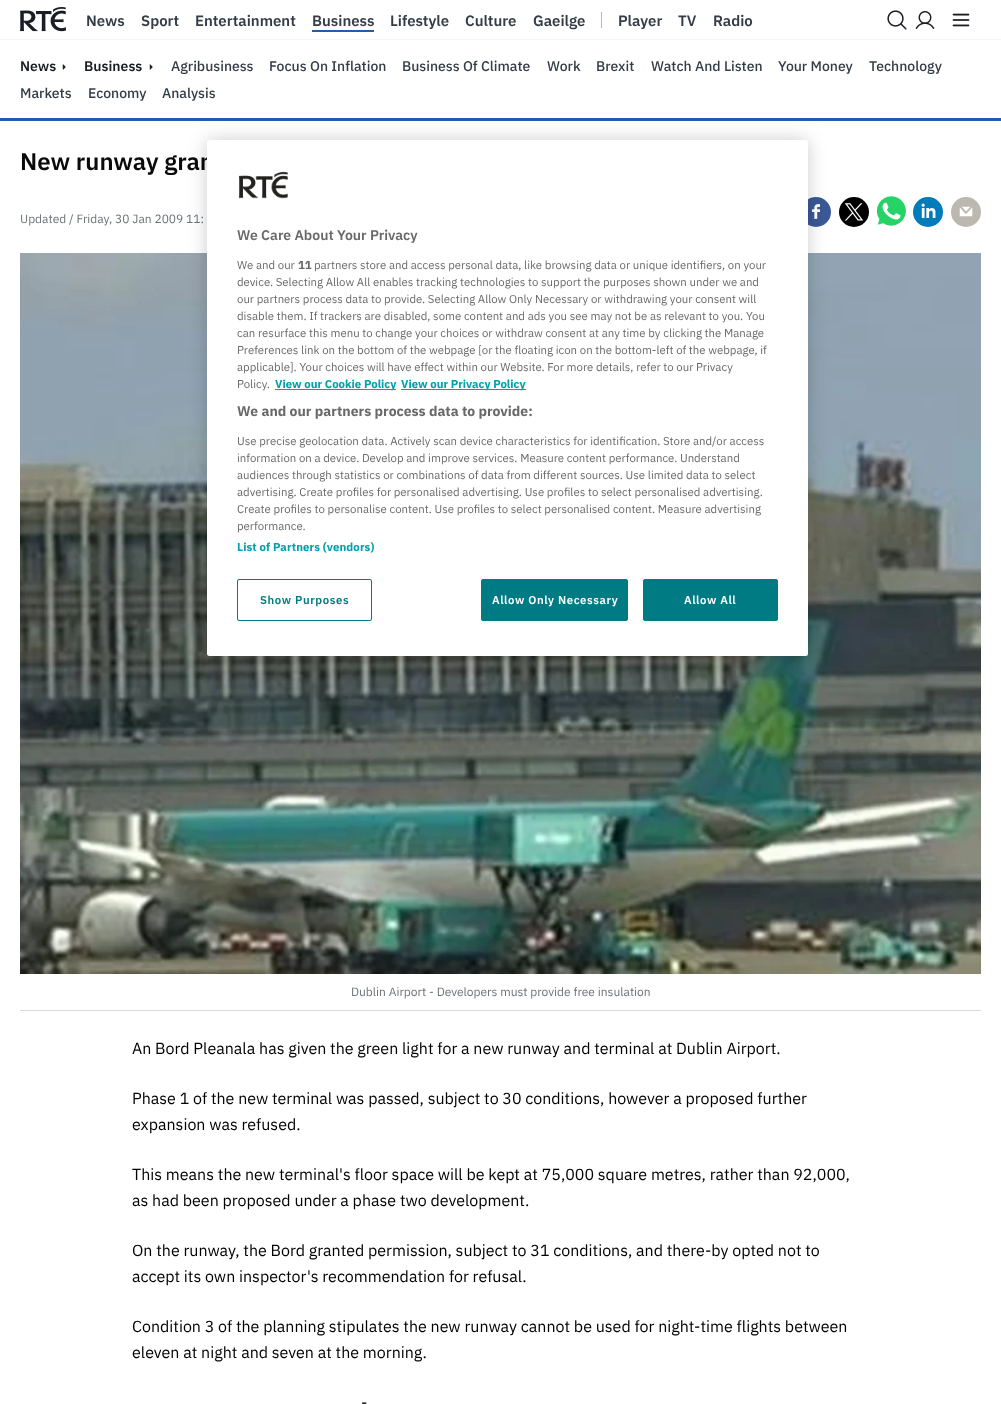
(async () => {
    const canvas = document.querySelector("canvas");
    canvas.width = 1001;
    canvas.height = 1404;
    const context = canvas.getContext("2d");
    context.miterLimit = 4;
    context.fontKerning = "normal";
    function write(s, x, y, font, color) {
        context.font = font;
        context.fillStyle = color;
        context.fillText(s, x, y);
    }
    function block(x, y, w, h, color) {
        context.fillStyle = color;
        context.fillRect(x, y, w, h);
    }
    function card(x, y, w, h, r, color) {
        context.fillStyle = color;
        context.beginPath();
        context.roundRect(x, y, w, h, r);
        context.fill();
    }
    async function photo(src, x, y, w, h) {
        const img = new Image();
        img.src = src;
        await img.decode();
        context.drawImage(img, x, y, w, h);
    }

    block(0, 0, 1001, 1404, "rgb(255, 255, 255)");
    block(0, 39, 1001, 1, "rgb(248, 246, 245)");
    await photo("media/1.png", 20, 7, 46, 25);
    write("News", 86, 26, "600 15px IBM Plex Sans", "rgb(51, 60, 71)");
    write("Sport", 141, 26, "600 15px IBM Plex Sans", "rgb(51, 60, 71)");
    write("Entertainment", 195, 26, "600 15px IBM Plex Sans", "rgb(51, 60, 71)");
    write("Business", 312, 26, "600 15px IBM Plex Sans", "rgb(51, 60, 71)");
    block(312, 30, 62, 2, "rgb(35, 91, 174)");
    write("Lifestyle", 390, 26, "600 15px IBM Plex Sans", "rgb(51, 60, 71)");
    write("Culture", 465, 26, "600 15px IBM Plex Sans", "rgb(51, 60, 71)");
    write("Gaeilge", 533, 26, "600 15px IBM Plex Sans", "rgb(51, 60, 71)");
    block(601, 12, 1, 16, "rgb(188, 184, 176)");
    write("Player", 618, 26, "600 15px IBM Plex Sans", "rgb(51, 60, 71)");
    write("TV", 678, 26, "600 15px IBM Plex Sans", "rgb(51, 60, 71)");
    write("Radio", 713, 26, "600 15px IBM Plex Sans", "rgb(51, 60, 71)");
    await photo("media/2.png", 887, 10, 20, 20);
    await photo("media/3.png", 915, 11, 20, 18);
    await photo("media/4.png", 952, 13, 18, 14);
    block(0, 118, 1001, 3, "rgb(35, 91, 174)");
    write("News", 20, 71, "600 14px IBM Plex Sans", "rgb(26, 30, 36)");
    await photo("media/5.png", 62, 64, 4, 6);
    write("Business", 84, 71, "600 14px IBM Plex Sans", "rgb(26, 30, 36)");
    await photo("media/5.png", 149, 64, 4, 6);
    write("Agribusiness", 171, 71, "500 14px IBM Plex Sans", "rgb(51, 60, 71)");
    write("Focus On Inflation", 269, 71, "500 14px IBM Plex Sans", "rgb(51, 60, 71)");
    write("Business Of Climate", 402, 71, "500 14px IBM Plex Sans", "rgb(51, 60, 71)");
    write("Work", 547, 71, "500 14px IBM Plex Sans", "rgb(51, 60, 71)");
    write("Brexit", 596, 71, "500 14px IBM Plex Sans", "rgb(51, 60, 71)");
    write("Watch And Listen", 651, 71, "500 14px IBM Plex Sans", "rgb(51, 60, 71)");
    write("Your Money", 778, 71, "500 14px IBM Plex Sans", "rgb(51, 60, 71)");
    write("Technology", 869, 71, "500 14px IBM Plex Sans", "rgb(51, 60, 71)");
    write("Markets", 20, 98, "500 14px IBM Plex Sans", "rgb(51, 60, 71)");
    write("Economy", 88, 98, "500 14px IBM Plex Sans", "rgb(51, 60, 71)");
    write("Analysis", 162, 98, "500 14px IBM Plex Sans", "rgb(51, 60, 71)");
    write("New runway gran", 20, 170, "600 24px IBM Plex Sans", "rgb(10, 10, 10)");
    write("Updated / Friday, 30 Jan 2009 11:", 20, 223, "12px IBM Plex Sans", "rgb(109, 114, 120)");
    context.fillStyle = "rgb(59, 89, 151)";
    context.beginPath();
    context.arc(816, 212, 15, 0, Math.PI * 2);
    context.fill();
    await photo("media/6.png", 812, 204, 8, 15);
    context.fillStyle = "rgb(0, 0, 0)";
    context.beginPath();
    context.arc(854, 212, 15, 0, Math.PI * 2);
    context.fill();
    await photo("media/7.png", 844, 203, 20, 18);
    await photo("media/8.png", 876, 196, 30, 30);
    context.fillStyle = "rgb(0, 124, 187)";
    context.beginPath();
    context.arc(928, 212, 15, 0, Math.PI * 2);
    context.fill();
    await photo("media/9.png", 921, 203, 15, 15);
    context.fillStyle = "rgb(188, 184, 176)";
    context.beginPath();
    context.arc(966, 212, 15, 0, Math.PI * 2);
    context.fill();
    await photo("media/10.png", 959, 206, 14, 11);
    await photo("media/11.png", 20, 253, 961, 721);
    block(20, 1010, 961, 1, "rgb(219, 217, 212)");
    write("Dublin Airport - Developers must provide free insulation", 351, 996, "12px IBM Plex Sans", "rgb(109, 114, 120)");
    write("An Bord Pleanala has given the green light for a new runway and terminal at Dublin Airport.", 132, 1054, "16px IBM Plex Sans", "rgb(0, 0, 0)");
    write("Phase 1 of the new terminal was passed, subject to 30 conditions, however a proposed further", 132, 1104, "16px IBM Plex Sans", "rgb(0, 0, 0)");
    write("expansion was refused.", 132, 1130, "16px IBM Plex Sans", "rgb(0, 0, 0)");
    write("This means the new terminal's floor space will be kept at 75,000 square metres, rather than 92,000,", 132, 1180, "16px IBM Plex Sans", "rgb(0, 0, 0)");
    write("as had been proposed under a phase two development.", 132, 1206, "16px IBM Plex Sans", "rgb(0, 0, 0)");
    write("On the runway, the Bord granted permission, subject to 31 conditions, and there-by opted not to", 132, 1256, "16px IBM Plex Sans", "rgb(0, 0, 0)");
    write("accept its own inspector's recommendation for refusal.", 132, 1282, "16px IBM Plex Sans", "rgb(0, 0, 0)");
    write("Condition 3 of the planning stipulates the new runway cannot be used for night-time flights between", 132, 1332, "16px IBM Plex Sans", "rgb(0, 0, 0)");
    write("eleven at night and seven at the morning.", 132, 1358, "16px IBM Plex Sans", "rgb(0, 0, 0)");
    write("-", 361, 1408, "16px IBM Plex Sans", "rgb(0, 0, 0)");
    context.fillStyle = "rgba(0, 0, 0, 0.2)";
    context.filter = "blur(9px)";
    context.beginPath();
    context.roundRect(207, 140, 601, 516, 2.5);
    context.fill();
    context.filter = "none";
    card(207, 140, 601, 516, 2.5, "rgb(255, 255, 255)");
    await photo("media/12.png", 238, 171, 50, 28);
    write("We Care About Your Privacy", 237, 240, "600 14px IBM Plex Sans", "rgb(105, 105, 105)");
    write("We and our", 237, 269, "11.4px IBM Plex Sans", "rgb(105, 105, 105)");
    write("11", 298, 269, "bold 11.4px IBM Plex Sans", "rgb(105, 105, 105)");
    write("partners store and access personal data, like browsing data or unique identifiers, on your", 314, 269, "11.4px IBM Plex Sans", "rgb(105, 105, 105)");
    write("device. Selecting Allow All enables tracking technologies to support the purposes shown under we and", 237, 286, "11.4px IBM Plex Sans", "rgb(105, 105, 105)");
    write("our partners process data to provide. Selecting Allow Only Necessary or withdrawing your consent will", 237, 303, "11.4px IBM Plex Sans", "rgb(105, 105, 105)");
    write("disable them. If trackers are disabled, some content and ads you see may not be as relevant to you. You", 237, 320, "11.4px IBM Plex Sans", "rgb(105, 105, 105)");
    write("can resurface this menu to change your choices or withdraw consent at any time by clicking the Manage", 237, 337, "11.4px IBM Plex Sans", "rgb(105, 105, 105)");
    write("Preferences link on the bottom of the webpage [or the floating icon on the bottom-left of the webpage, if", 237, 354, "11.4px IBM Plex Sans", "rgb(105, 105, 105)");
    write("applicable]. Your choices will have effect within our Website. For more details, refer to our Privacy", 237, 371, "11.4px IBM Plex Sans", "rgb(105, 105, 105)");
    write("Policy.", 237, 388, "11.4px IBM Plex Sans", "rgb(105, 105, 105)");
    block(275, 389, 121, 1, "rgb(0, 161, 173)");
    write("View our Cookie Policy", 275, 388, "bold 11.4px IBM Plex Sans", "rgb(0, 161, 173)");
    block(401, 389, 125, 1, "rgb(0, 161, 173)");
    write("View our Privacy Policy", 401, 388, "bold 11.4px IBM Plex Sans", "rgb(0, 161, 173)");
    write("We and our partners process data to provide:", 237, 416, "bold 14px IBM Plex Sans", "rgb(105, 105, 105)");
    write("Use precise geolocation data. Actively scan device characteristics for identification. Store and/or access", 237, 445, "11.4px IBM Plex Sans", "rgb(105, 105, 105)");
    write("information on a device. Develop and improve services. Measure content performance. Understand", 237, 462, "11.4px IBM Plex Sans", "rgb(105, 105, 105)");
    write("audiences through statistics or combinations of data from different sources. Use limited data to select", 237, 479, "11.4px IBM Plex Sans", "rgb(105, 105, 105)");
    write("advertising. Create profiles for personalised advertising. Use profiles to select personalised advertising.", 237, 496, "11.4px IBM Plex Sans", "rgb(105, 105, 105)");
    write("Create profiles to personalise content. Use profiles to select personalised content. Measure advertising", 237, 513, "11.4px IBM Plex Sans", "rgb(105, 105, 105)");
    write("performance.", 237, 530, "11.4px IBM Plex Sans", "rgb(105, 105, 105)");
    context.letterSpacing = "0.1px";
    write("List of Partners (vendors)", 237, 551, "bold 11.4px IBM Plex Sans", "rgb(0, 161, 173)");
    context.beginPath();
    context.roundRect(237.5, 579.5, 134, 41, 1.5);
    context.strokeStyle = "rgb(0, 123, 132)";
    context.stroke();
    context.letterSpacing = "0.6px";
    write("Show Purposes", 260, 604, "600 11.4px IBM Plex Sans", "rgb(0, 123, 132)");
    context.beginPath();
    context.roundRect(481.5, 579.5, 146, 41, 1.5);
    context.fill();
    context.stroke();
    write("Allow Only Necessary", 492, 604, "600 11.4px IBM Plex Sans", "rgb(255, 255, 255)");
    context.fillStyle = "rgb(0, 123, 132)";
    context.beginPath();
    context.roundRect(643.5, 579.5, 134, 41, 1.5);
    context.fill();
    context.stroke();
    write("Allow All", 684, 604, "600 11.4px IBM Plex Sans", "rgb(255, 255, 255)");
})();
